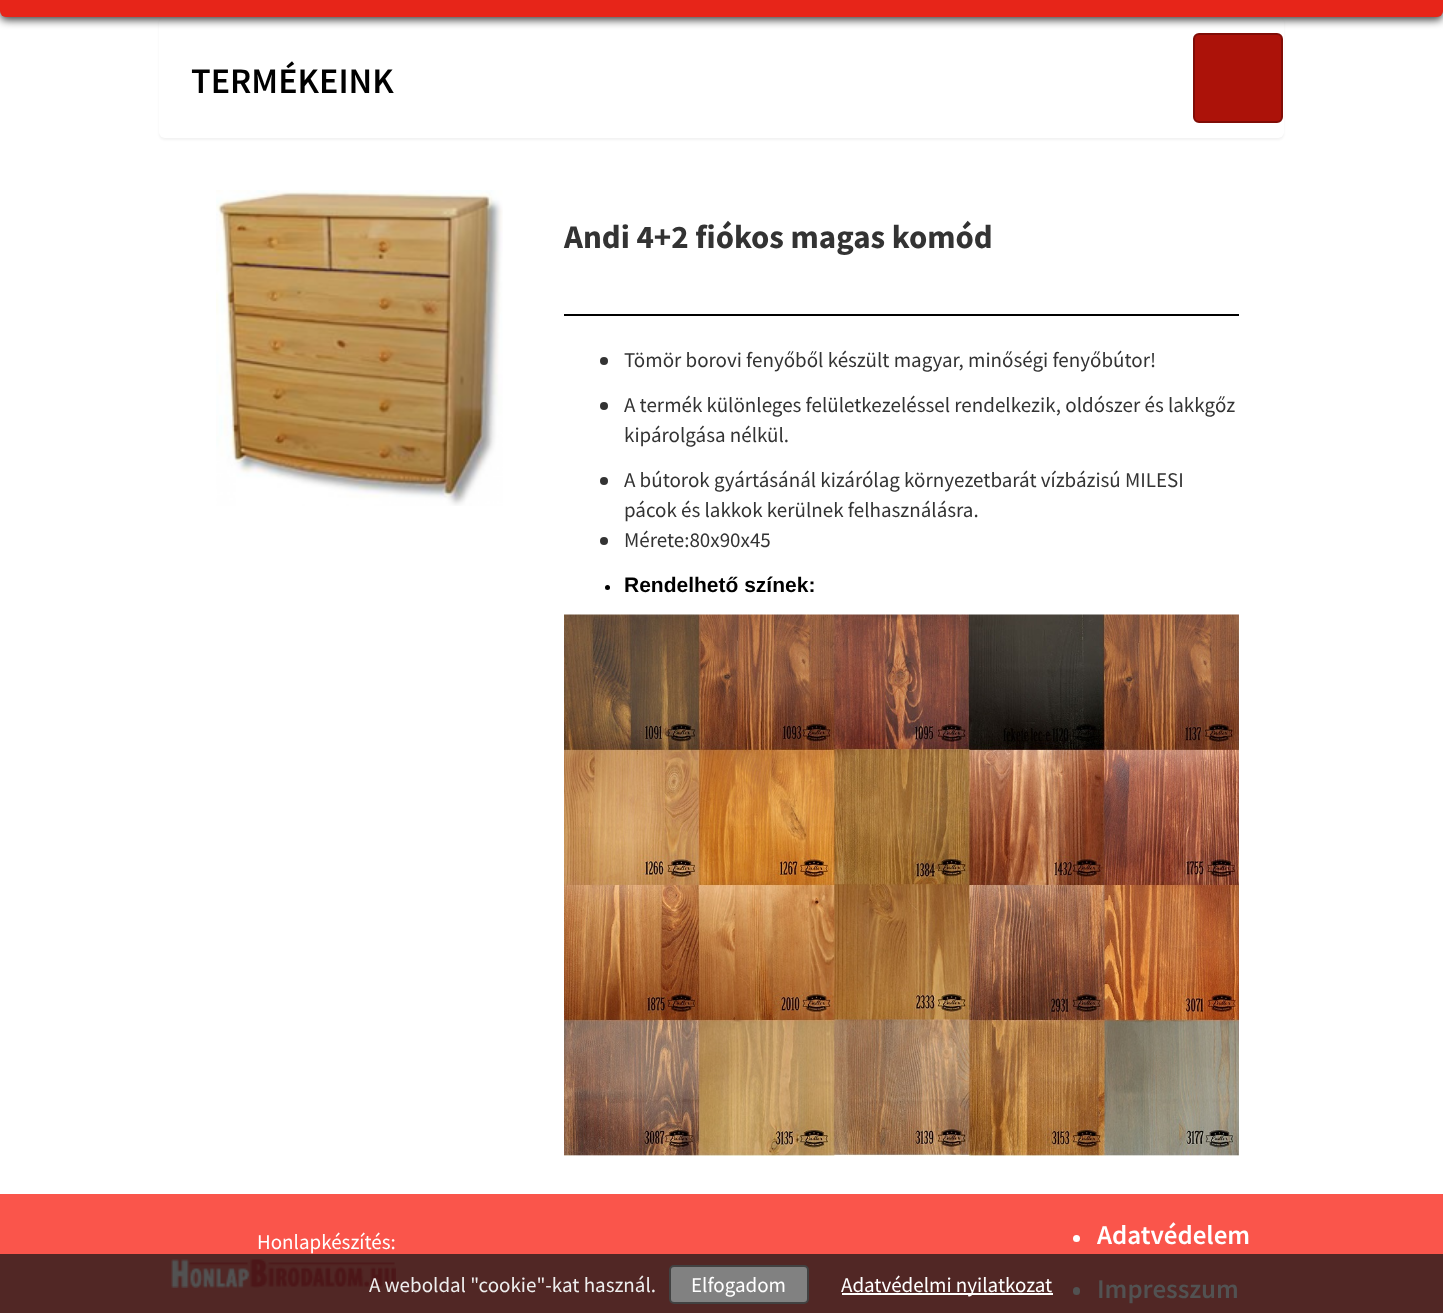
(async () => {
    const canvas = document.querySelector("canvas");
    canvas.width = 1443;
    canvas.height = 1313;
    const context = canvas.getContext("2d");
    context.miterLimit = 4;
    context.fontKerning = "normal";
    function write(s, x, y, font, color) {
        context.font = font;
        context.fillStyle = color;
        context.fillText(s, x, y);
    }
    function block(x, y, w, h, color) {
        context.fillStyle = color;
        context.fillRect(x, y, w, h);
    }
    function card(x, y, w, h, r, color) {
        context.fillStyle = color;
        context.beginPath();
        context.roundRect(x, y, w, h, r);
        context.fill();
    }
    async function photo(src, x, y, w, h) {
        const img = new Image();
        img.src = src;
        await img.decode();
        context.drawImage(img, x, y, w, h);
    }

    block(0, 0, 1443, 1313, "rgb(255, 255, 255)");
    context.fillStyle = "rgba(0, 0, 0, 0.05)";
    context.filter = "blur(1px)";
    context.beginPath();
    context.roundRect(159, 18, 1125, 122, 6);
    context.fill();
    context.filter = "none";
    card(159, 17, 1125, 121, 6, "rgb(255, 255, 255)");
    context.fillStyle = "rgba(0, 0, 0, 0.75)";
    context.filter = "blur(4px)";
    context.beginPath();
    context.roundRect(0, -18, 1443, 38, 6);
    context.fill();
    context.filter = "none";
    card(0, -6, 1443, 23, 6, "rgb(231, 37, 25)");
    write("TERMÉKEINK", 191, 93, "600 36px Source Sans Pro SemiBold", "rgb(0, 0, 0)");
    context.fillStyle = "rgb(172, 18, 9)";
    context.beginPath();
    context.roundRect(1194, 34, 88, 88, 5);
    context.fill();
    context.strokeStyle = "rgb(128, 12, 6)";
    context.lineWidth = 2;
    context.stroke();
    await photo("media/1.png", 216, 190, 287, 316);
    write("Andi 4+2 fiókos magas komód", 564, 248, "bold 33px Source Sans Pro", "rgb(51, 51, 51)");
    block(564, 314, 675, 2, "rgb(0, 0, 0)");
    context.fillStyle = "rgb(51, 51, 51)";
    context.beginPath();
    context.arc(604, 361, 4, 0, Math.PI * 2);
    context.fill();
    write("Tömör borovi fenyőből készült magyar, minőségi fenyőbútor!", 624, 367, "21px Source Sans Pro", "rgb(51, 51, 51)");
    context.beginPath();
    context.arc(604, 406, 4, 0, Math.PI * 2);
    context.fill();
    write("A termék különleges felületkezeléssel rendelkezik, oldószer és lakkgőz", 624, 412, "21px Source Sans Pro", "rgb(51, 51, 51)");
    write("kipárolgása nélkül.", 624, 442, "21px Source Sans Pro", "rgb(51, 51, 51)");
    context.beginPath();
    context.arc(604, 481, 4, 0, Math.PI * 2);
    context.fill();
    write("A bútorok gyártásánál kizárólag környezetbarát vízbázisú MILESI", 624, 487, "21px Source Sans Pro", "rgb(51, 51, 51)");
    write("pácok és lakkok kerülnek felhasználásra.", 624, 517, "21px Source Sans Pro", "rgb(51, 51, 51)");
    context.beginPath();
    context.arc(604, 541, 4, 0, Math.PI * 2);
    context.fill();
    write("Mérete:80x90x45", 624, 547, "21px Source Sans Pro", "rgb(51, 51, 51)");
    context.fillStyle = "rgb(0, 0, 0)";
    context.beginPath();
    context.arc(607.5, 587.5, 2.5, 0, Math.PI * 2);
    context.fill();
    write("Rendelhető színek:", 624, 592, "bold 21px Liberation Sans", "rgb(0, 0, 0)");
    await photo("media/2.png", 564, 614, 675, 542);
    block(0, 1194, 1443, 60, "rgb(250, 85, 75)");
    block(0, 1254, 1443, 59, "rgb(81, 39, 37)");
    write("Honlapkészítés:", 257, 1249, "21px Source Sans Pro", "rgb(255, 255, 255)");
    await photo("media/3.png", 171, 1259, 225, 29);
    context.beginPath();
    context.arc(1076.5, 1238.5, 3.5, 0, Math.PI * 2);
    context.fill();
    write("Adatvédelem", 1097, 1244, "600 27px Source Sans Pro SemiBold", "rgb(255, 255, 255)");
    card(1073, 1287, 7, 8, 3.5, "rgb(82, 82, 82)");
    write("Impresszum", 1097, 1298, "600 27px Source Sans Pro SemiBold", "rgb(82, 82, 82)");
    write("A weboldal \"cookie\"-kat használ.", 369, 1292, "21px Source Sans Pro", "rgb(238, 238, 238)");
    context.fillStyle = "rgb(129, 129, 129)";
    context.beginPath();
    context.roundRect(670, 1266, 138, 37, 4);
    context.fill();
    context.strokeStyle = "rgb(66, 66, 66)";
    context.stroke();
    write("Elfogadom", 691, 1292, "21px Source Sans Pro", "rgb(255, 255, 255)");
    block(842, 1293, 211, 2, "rgb(255, 255, 255)");
    write("Adatvédelmi nyilatkozat", 841, 1292, "21px Source Sans Pro", "rgb(255, 255, 255)");
})();
